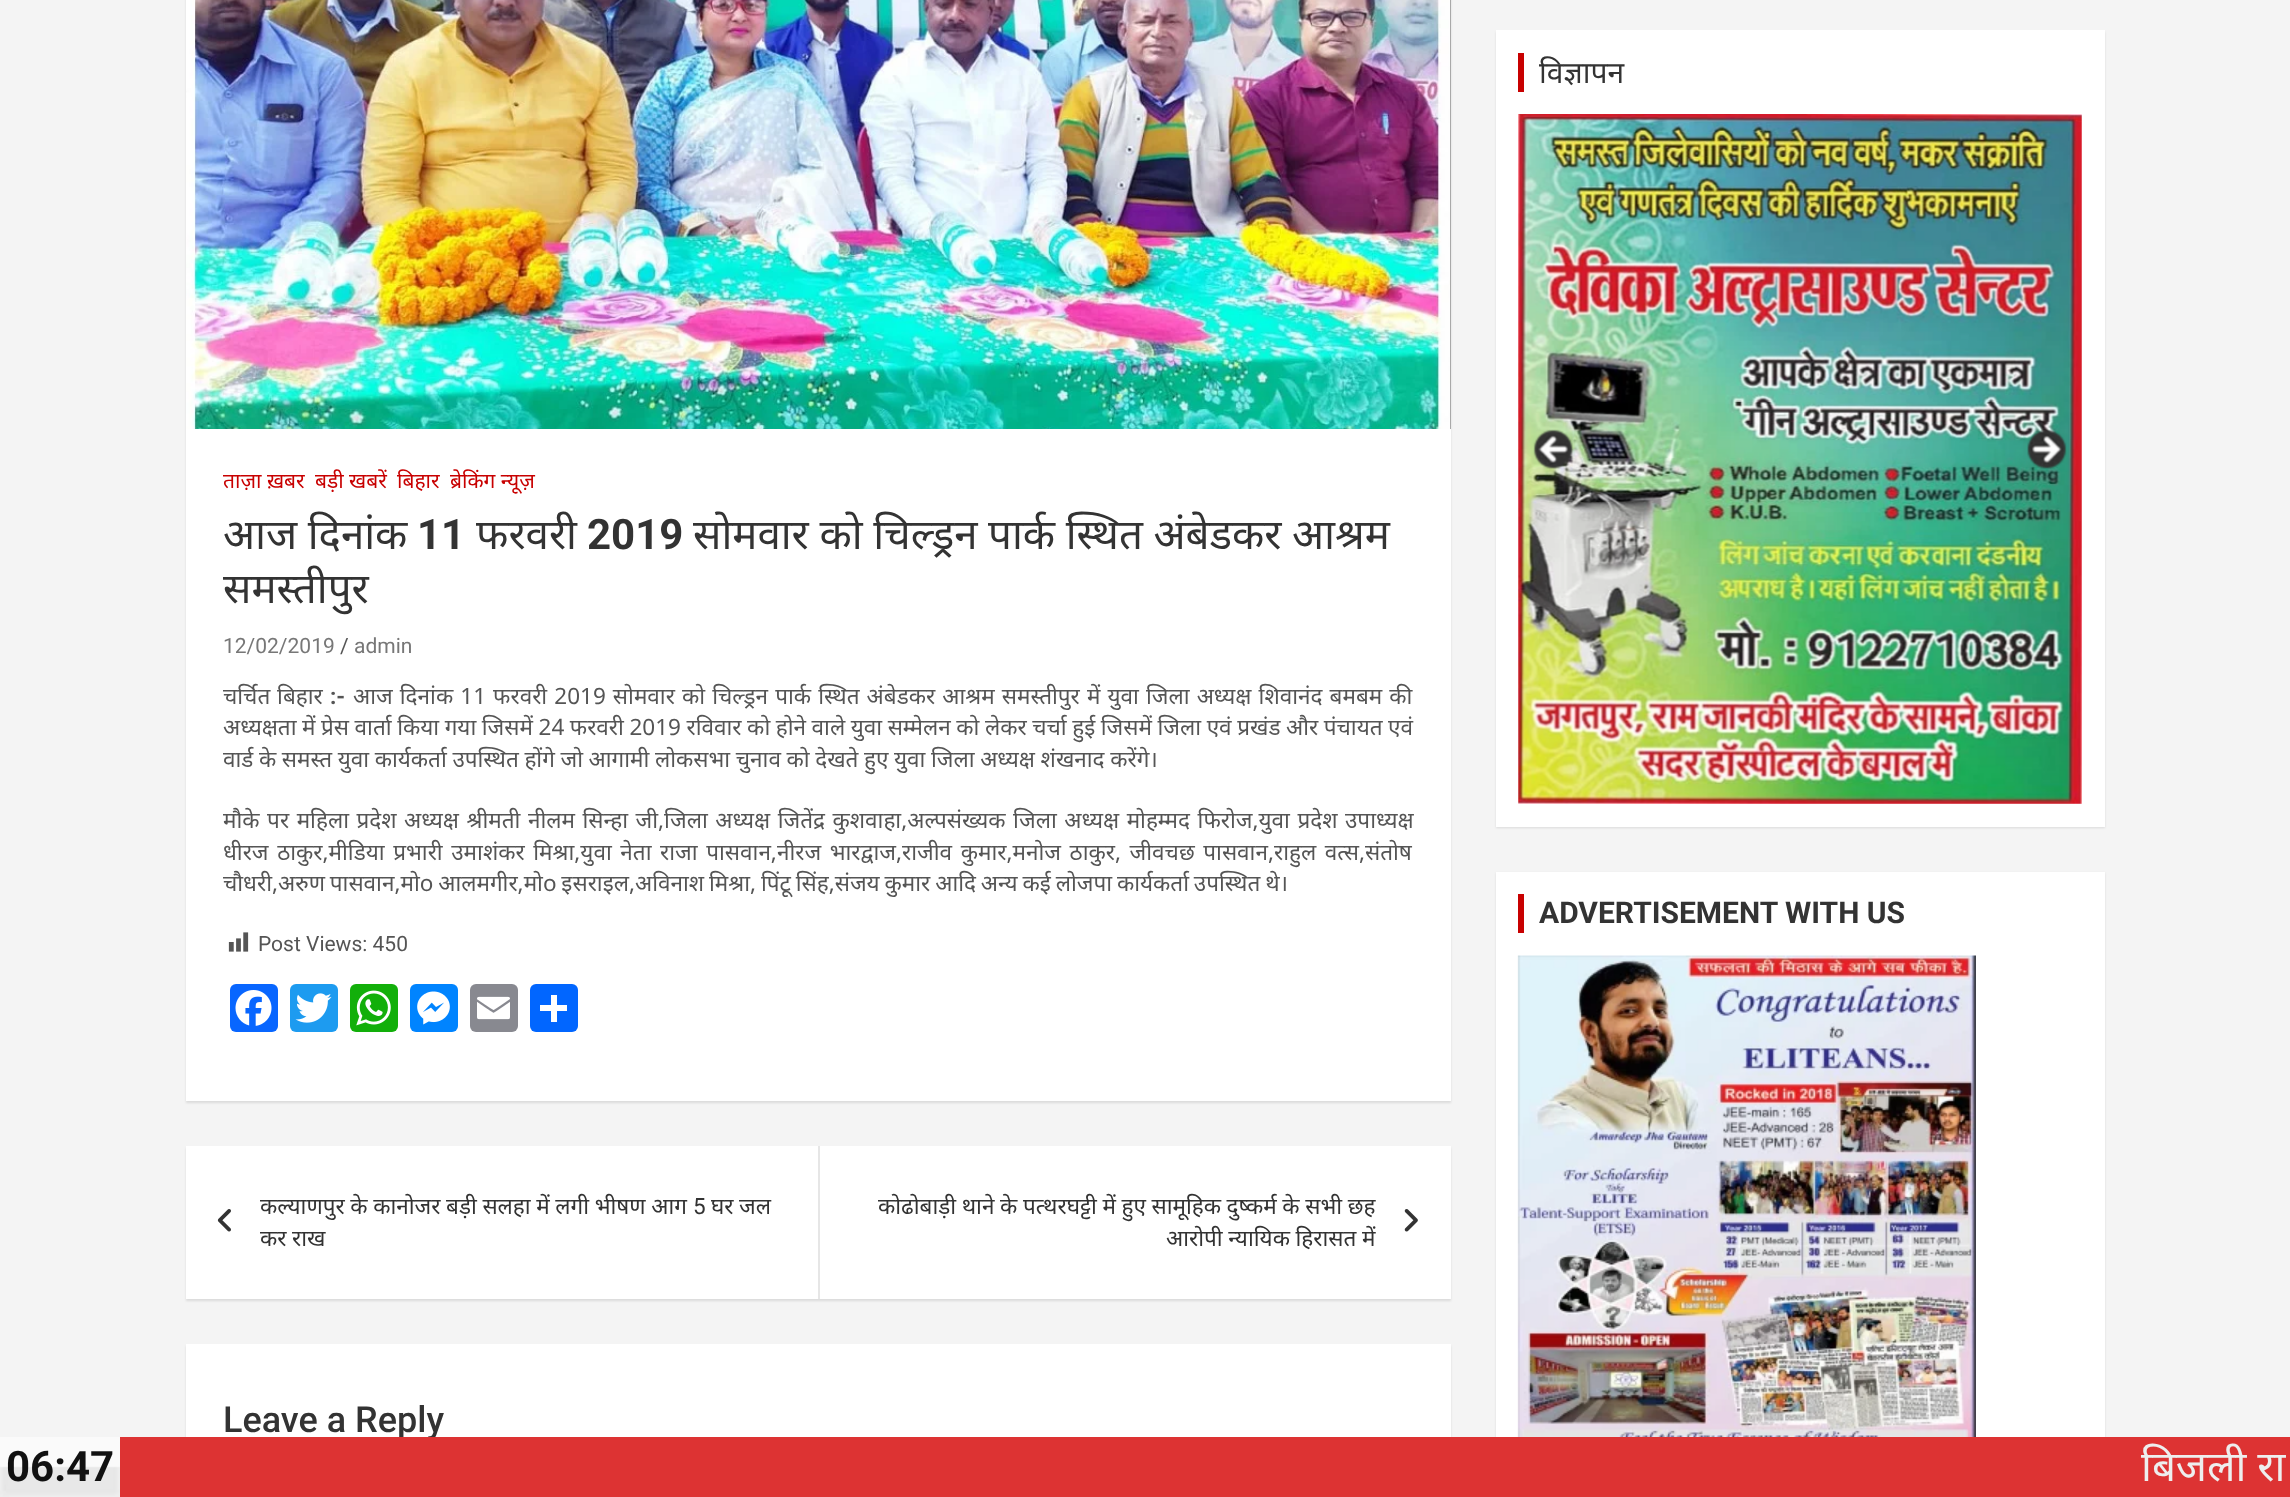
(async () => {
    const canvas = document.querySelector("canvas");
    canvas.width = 2290;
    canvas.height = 1497;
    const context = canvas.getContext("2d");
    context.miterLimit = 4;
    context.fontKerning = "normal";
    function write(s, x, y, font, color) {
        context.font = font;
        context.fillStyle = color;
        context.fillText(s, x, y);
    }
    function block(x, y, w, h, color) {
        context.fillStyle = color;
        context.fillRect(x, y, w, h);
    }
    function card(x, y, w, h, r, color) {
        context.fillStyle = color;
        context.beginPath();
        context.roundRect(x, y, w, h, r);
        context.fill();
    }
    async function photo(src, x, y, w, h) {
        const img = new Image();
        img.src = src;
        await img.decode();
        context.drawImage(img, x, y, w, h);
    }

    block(0, 0, 2290, 1497, "rgb(244, 244, 244)");
    context.fillStyle = "rgba(0, 0, 0, 0.1)";
    context.filter = "blur(1px)";
    context.beginPath();
    context.rect(186, -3, 1265, 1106);
    context.fill();
    context.filter = "none";
    block(186, 429, 1265, 672, "rgb(255, 255, 255)");
    block(1450, 0, 1, 429, "rgb(85, 85, 85)");
    await photo("media/1.png", 186, 0, 1265, 429);
    write("ताज़ा ख़बर", 223, 488, "21px Noto Sans", "rgb(200, 0, 0)");
    write("बड़ी खबरें", 315, 488, "21px Noto Sans", "rgb(200, 0, 0)");
    write("बिहार", 397, 488, "21px Noto Sans", "rgb(200, 0, 0)");
    write("ब्रेकिंग न्यूज़", 450, 488, "21px Noto Sans", "rgb(200, 0, 0)");
    context.wordSpacing = "-0.3px";
    write("आज दिनांक", 223, 549, "42px Noto Sans", "rgb(51, 51, 51)");
    context.wordSpacing = "0px";
    write("11", 417, 549, "bold 42px Roboto", "rgb(51, 51, 51)");
    write("फरवरी", 476, 549, "42px Noto Sans", "rgb(51, 51, 51)");
    write("2019", 587, 549, "bold 42px Roboto", "rgb(51, 51, 51)");
    context.wordSpacing = "-0.3px";
    write("सोमवार को चिल्ड्रन पार्क स्थित अंबेडकर आश्रम", 693, 549, "42px Noto Sans", "rgb(51, 51, 51)");
    context.wordSpacing = "0px";
    write("समस्तीपुर", 223, 603, "42px Noto Sans", "rgb(51, 51, 51)");
    write("12/02/2019", 223, 653, "21px Roboto", "rgb(119, 119, 119)");
    write("/", 340, 653, "21px Roboto", "rgb(85, 85, 85)");
    write("admin", 354, 653, "21px Roboto", "rgb(119, 119, 119)");
    context.wordSpacing = "1px";
    write("चर्चित बिहार", 223, 704, "22.5px Noto Sans", "rgb(85, 85, 85)");
    context.wordSpacing = "0px";
    write(":-", 330, 704, "bold 22.5px Roboto", "rgb(85, 85, 85)");
    context.wordSpacing = "1.25px";
    write("आज दिनांक 11 फरवरी 2019 सोमवार को चिल्ड्रन पार्क स्थित अंबेडकर आश्रम समस्तीपुर में युवा जिला अध्यक्ष शिवानंद बमबम की", 353, 704, "22.5px Noto Sans", "rgb(85, 85, 85)");
    context.wordSpacing = "-0.3px";
    write("अध्यक्षता में प्रेस वार्ता किया गया जिसमें 24 फरवरी 2019 रविवार को होने वाले युवा सम्मेलन को लेकर चर्चा हुई जिसमें जिला एवं प्रखंड और पंचायत एवं", 223, 735, "22.5px Noto Sans", "rgb(85, 85, 85)");
    context.wordSpacing = "-0.25px";
    write("वार्ड के समस्त युवा कार्यकर्ता उपस्थित होंगे जो आगामी लोकसभा चुनाव को देखते हुए युवा जिला अध्यक्ष शंखनाद करेंगे।", 223, 767, "22.5px Noto Sans", "rgb(85, 85, 85)");
    context.wordSpacing = "1.7px";
    write("मौके पर महिला प्रदेश अध्यक्ष श्रीमती नीलम सिन्हा जी,जिला अध्यक्ष जितेंद्र कुशवाहा,अल्पसंख्यक जिला अध्यक्ष मोहम्मद फिरोज,युवा प्रदेश उपाध्यक्ष", 223, 828, "22.5px Noto Sans", "rgb(85, 85, 85)");
    context.wordSpacing = "2.75px";
    write("धीरज ठाकुर,मीडिया प्रभारी उमाशंकर मिश्रा,युवा नेता राजा पासवान,नीरज भारद्वाज,राजीव कुमार,मनोज ठाकुर, जीवचछ पासवान,राहुल वत्स,संतोष", 223, 860, "22.5px Noto Sans", "rgb(85, 85, 85)");
    context.wordSpacing = "-1px";
    write("चौधरी,अरुण पासवान,मोo आलमगीर,मोo इसराइल,अविनाश मिश्रा, पिंटू सिंह,संजय कुमार आदि अन्य कई लोजपा कार्यकर्ता उपस्थित थे।", 223, 891, "22.5px Noto Sans", "rgb(85, 85, 85)");
    await photo("media/2.png", 228, 932, 21, 20);
    context.wordSpacing = "0px";
    write("Post Views: 450", 258, 951, "21px Roboto", "rgb(85, 85, 85)");
    card(230, 984, 48, 48, 6, "rgb(8, 102, 255)");
    await photo("media/3.png", 235, 990, 37, 36);
    card(290, 984, 48, 48, 6, "rgb(29, 155, 240)");
    await photo("media/4.png", 295, 993, 37, 30);
    card(350, 984, 48, 48, 6, "rgb(18, 175, 10)");
    await photo("media/5.png", 356, 990, 35, 36);
    card(410, 984, 48, 48, 6, "rgb(0, 132, 255)");
    await photo("media/6.png", 417, 991, 33, 34);
    card(470, 984, 48, 48, 6, "rgb(136, 137, 144)");
    await photo("media/7.png", 477, 996, 33, 24);
    card(530, 984, 48, 48, 6, "rgb(1, 102, 255)");
    block(551, 995, 6, 27, "rgb(255, 255, 255)");
    block(540, 1005, 27, 6, "rgb(255, 255, 255)");
    context.fillStyle = "rgba(0, 0, 0, 0.1)";
    context.filter = "blur(1px)";
    context.beginPath();
    context.rect(186, 1148, 1265, 153);
    context.fill();
    context.filter = "none";
    block(186, 1146, 1265, 153, "rgb(255, 255, 255)");
    context.wordSpacing = "-0.25px";
    write("कल्याणपुर के कानोजर बड़ी सलहा में लगी भीषण आग", 260, 1214, "22.5px Noto Sans", "rgb(51, 51, 51)");
    context.wordSpacing = "0px";
    write("5", 693, 1214, "22.5px Roboto", "rgb(51, 51, 51)");
    context.wordSpacing = "-0.25px";
    write("घर जल", 711, 1214, "22.5px Noto Sans", "rgb(51, 51, 51)");
    await photo("media/8.png", 217, 1209, 14, 23);
    write("कर राख", 260, 1246, "22.5px Noto Sans", "rgb(51, 51, 51)");
    block(818, 1146, 2, 153, "rgb(230, 230, 230)");
    write("कोढोबाड़ी थाने के पत्थरघट्टी में हुए सामूहिक दुष्कर्म के सभी छह", 878, 1214, "22.5px Noto Sans", "rgb(51, 51, 51)");
    await photo("media/9.png", 1404, 1209, 14, 23);
    write("आरोपी न्यायिक हिरासत में", 1166, 1246, "22.5px Noto Sans", "rgb(51, 51, 51)");
    context.fillStyle = "rgba(0, 0, 0, 0.1)";
    context.filter = "blur(1px)";
    context.beginPath();
    context.rect(186, 1346, 1265, 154);
    context.fill();
    context.filter = "none";
    block(186, 1344, 1265, 93, "rgb(255, 255, 255)");
    context.wordSpacing = "0px";
    write("Leave a Reply", 223, 1432, "500 36px Roboto", "rgb(51, 51, 51)");
    context.fillStyle = "rgba(0, 0, 0, 0.1)";
    context.filter = "blur(1px)";
    context.beginPath();
    context.rect(1496, 32, 609, 796);
    context.fill();
    context.filter = "none";
    block(1496, 30, 609, 797, "rgb(255, 255, 255)");
    block(1518, 53, 6, 39, "rgb(200, 0, 0)");
    write("विज्ञापन", 1539, 83, "30px Noto Sans", "rgb(51, 51, 51)");
    await photo("media/10.png", 1518, 114, 564, 690);
    await photo("media/11.png", 1533, 429, 40, 40);
    await photo("media/12.png", 2027, 429, 40, 40);
    context.fillStyle = "rgba(0, 0, 0, 0.1)";
    context.filter = "blur(1px)";
    context.beginPath();
    context.rect(1496, 873, 609, 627);
    context.fill();
    context.filter = "none";
    block(1496, 872, 609, 565, "rgb(255, 255, 255)");
    block(1518, 894, 6, 39, "rgb(200, 0, 0)");
    write("ADVERTISEMENT WITH US", 1539, 923, "bold 30px Roboto", "rgb(51, 51, 51)");
    await photo("media/13.png", 1517, 955, 459, 482);
    await photo("media/14.png", 0, 1437, 120, 60);
    write("06:47", 6, 1481, "bold 42px Roboto", "rgb(17, 17, 17)");
    block(120, 1437, 2170, 60, "rgb(221, 51, 51)");
    write("बिजली रा", 2141, 1481, "42px Noto Sans", "rgb(238, 238, 238)");
})();
